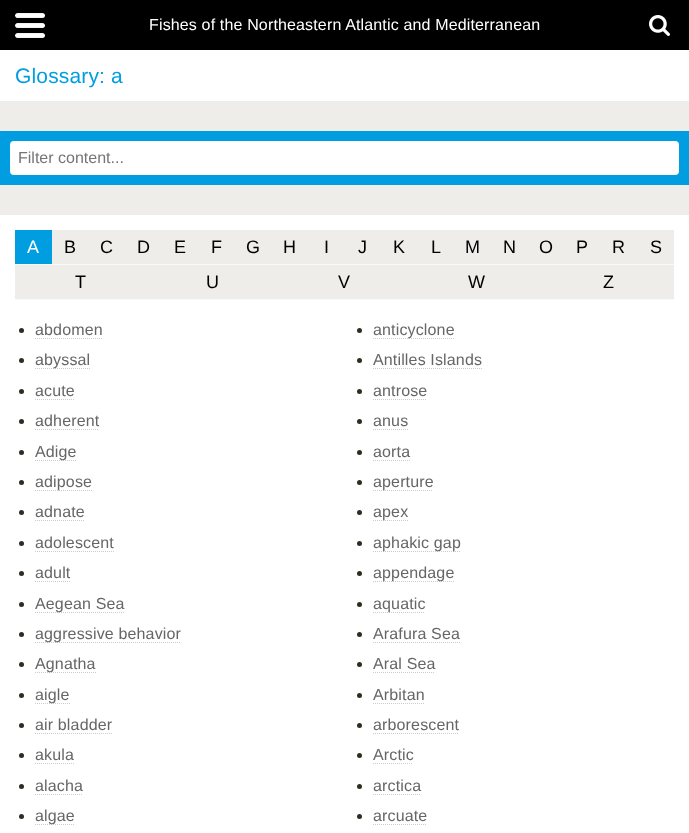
(async () => {
    const canvas = document.querySelector("canvas");
    canvas.width = 689;
    canvas.height = 833;
    const context = canvas.getContext("2d");
    context.miterLimit = 4;
    context.fontKerning = "normal";
    function write(s, x, y, font, color) {
        context.font = font;
        context.fillStyle = color;
        context.fillText(s, x, y);
    }
    function block(x, y, w, h, color) {
        context.fillStyle = color;
        context.fillRect(x, y, w, h);
    }
    function card(x, y, w, h, r, color) {
        context.fillStyle = color;
        context.beginPath();
        context.roundRect(x, y, w, h, r);
        context.fill();
    }
    async function photo(src, x, y, w, h) {
        const img = new Image();
        img.src = src;
        await img.decode();
        context.drawImage(img, x, y, w, h);
    }

    block(0, 0, 689, 833, "rgb(238, 237, 233)");
    block(0, 0, 689, 50, "rgb(0, 0, 0)");
    await photo("media/1.png", 15, 13, 30, 25);
    context.letterSpacing = "0.15px";
    write("Fishes of the Northeastern Atlantic and Mediterranean", 149, 30, "16px Liberation Sans", "rgb(255, 255, 255)");
    await photo("media/2.png", 649, 15, 21, 21);
    block(0, 50, 689, 51, "rgb(255, 255, 255)");
    write("Glossary: a", 15, 83, "21px Liberation Sans", "rgb(0, 158, 224)");
    block(0, 131, 689, 54, "rgb(0, 158, 224)");
    card(10, 141, 669, 34, 4, "rgb(255, 255, 255)");
    context.letterSpacing = "0px";
    write("Filter content...", 18, 163, "16px Liberation Sans", "rgb(117, 117, 117)");
    block(0, 215, 689, 618, "rgb(255, 255, 255)");
    block(15, 230, 659, 69, "rgb(238, 237, 233)");
    block(15, 230, 37, 34, "rgb(0, 158, 224)");
    block(15, 264, 659, 1, "rgb(249, 249, 247)");
    context.letterSpacing = "0.15px";
    write("A", 27, 253, "18px Liberation Sans", "rgb(255, 255, 255)");
    write("B", 64, 253, "18px Liberation Sans", "rgb(0, 0, 0)");
    write("C", 100, 253, "18px Liberation Sans", "rgb(0, 0, 0)");
    write("D", 137, 253, "18px Liberation Sans", "rgb(0, 0, 0)");
    write("E", 174, 253, "18px Liberation Sans", "rgb(0, 0, 0)");
    write("F", 211, 253, "18px Liberation Sans", "rgb(0, 0, 0)");
    write("G", 246, 253, "18px Liberation Sans", "rgb(0, 0, 0)");
    write("H", 283, 253, "18px Liberation Sans", "rgb(0, 0, 0)");
    write("I", 324, 253, "18px Liberation Sans", "rgb(0, 0, 0)");
    write("J", 358, 253, "18px Liberation Sans", "rgb(0, 0, 0)");
    write("K", 393, 253, "18px Liberation Sans", "rgb(0, 0, 0)");
    write("L", 431, 253, "18px Liberation Sans", "rgb(0, 0, 0)");
    write("M", 465, 253, "18px Liberation Sans", "rgb(0, 0, 0)");
    write("N", 503, 253, "18px Liberation Sans", "rgb(0, 0, 0)");
    write("O", 539, 253, "18px Liberation Sans", "rgb(0, 0, 0)");
    write("P", 576, 253, "18px Liberation Sans", "rgb(0, 0, 0)");
    write("R", 612, 253, "18px Liberation Sans", "rgb(0, 0, 0)");
    write("S", 650, 253, "18px Liberation Sans", "rgb(0, 0, 0)");
    block(15, 299, 659, 1, "rgb(249, 249, 247)");
    write("T", 75, 288, "18px Liberation Sans", "rgb(0, 0, 0)");
    write("U", 206, 288, "18px Liberation Sans", "rgb(0, 0, 0)");
    write("V", 338, 288, "18px Liberation Sans", "rgb(0, 0, 0)");
    write("W", 468, 288, "18px Liberation Sans", "rgb(0, 0, 0)");
    write("Z", 603, 288, "18px Liberation Sans", "rgb(0, 0, 0)");
    context.fillStyle = "rgb(48, 44, 34)";
    context.beginPath();
    context.arc(21.5, 330.5, 2.5, 0, Math.PI * 2);
    context.fill();
    write("abdomen", 35, 335, "16px Liberation Sans", "rgb(102, 102, 102)");
    context.beginPath();
    context.moveTo(35, 338.5);
    context.lineTo(103, 338.5);
    context.strokeStyle = "rgb(204, 204, 204)";
    context.setLineDash([1, 1]);
    context.stroke();
    context.fillStyle = "rgb(48, 44, 34)";
    context.beginPath();
    context.arc(359.5, 330.5, 2.5, 0, Math.PI * 2);
    context.fill();
    context.beginPath();
    context.moveTo(373, 338.5);
    context.lineTo(454, 338.5);
    context.stroke();
    write("anticyclone", 373, 335, "16px Liberation Sans", "rgb(102, 102, 102)");
    context.fillStyle = "rgb(48, 44, 34)";
    context.beginPath();
    context.arc(21.5, 360.5, 2.5, 0, Math.PI * 2);
    context.fill();
    context.beginPath();
    context.moveTo(35, 368.5);
    context.lineTo(90, 368.5);
    context.stroke();
    write("abyssal", 35, 365, "16px Liberation Sans", "rgb(102, 102, 102)");
    context.fillStyle = "rgb(48, 44, 34)";
    context.beginPath();
    context.arc(359.5, 360.5, 2.5, 0, Math.PI * 2);
    context.fill();
    write("Antilles Islands", 373, 365, "16px Liberation Sans", "rgb(102, 102, 102)");
    context.beginPath();
    context.moveTo(373, 368.5);
    context.lineTo(482, 368.5);
    context.stroke();
    context.fillStyle = "rgb(48, 44, 34)";
    context.beginPath();
    context.arc(21.5, 391.5, 2.5, 0, Math.PI * 2);
    context.fill();
    write("acute", 35, 396, "16px Liberation Sans", "rgb(102, 102, 102)");
    context.beginPath();
    context.moveTo(35, 399.5);
    context.lineTo(75, 399.5);
    context.stroke();
    context.fillStyle = "rgb(48, 44, 34)";
    context.beginPath();
    context.arc(359.5, 391.5, 2.5, 0, Math.PI * 2);
    context.fill();
    write("antrose", 373, 396, "16px Liberation Sans", "rgb(102, 102, 102)");
    context.beginPath();
    context.moveTo(373, 399.5);
    context.lineTo(427, 399.5);
    context.stroke();
    context.fillStyle = "rgb(48, 44, 34)";
    context.beginPath();
    context.arc(21.5, 421.5, 2.5, 0, Math.PI * 2);
    context.fill();
    write("adherent", 35, 426, "16px Liberation Sans", "rgb(102, 102, 102)");
    context.beginPath();
    context.moveTo(35, 429.5);
    context.lineTo(99, 429.5);
    context.stroke();
    context.fillStyle = "rgb(48, 44, 34)";
    context.beginPath();
    context.arc(359.5, 421.5, 2.5, 0, Math.PI * 2);
    context.fill();
    write("anus", 373, 426, "16px Liberation Sans", "rgb(102, 102, 102)");
    context.beginPath();
    context.moveTo(373, 429.5);
    context.lineTo(408, 429.5);
    context.stroke();
    context.fillStyle = "rgb(48, 44, 34)";
    context.beginPath();
    context.arc(21.5, 452.5, 2.5, 0, Math.PI * 2);
    context.fill();
    context.beginPath();
    context.moveTo(35, 460.5);
    context.lineTo(77, 460.5);
    context.stroke();
    write("Adige", 35, 457, "16px Liberation Sans", "rgb(102, 102, 102)");
    context.fillStyle = "rgb(48, 44, 34)";
    context.beginPath();
    context.arc(359.5, 452.5, 2.5, 0, Math.PI * 2);
    context.fill();
    write("aorta", 373, 457, "16px Liberation Sans", "rgb(102, 102, 102)");
    context.beginPath();
    context.moveTo(373, 460.5);
    context.lineTo(410, 460.5);
    context.stroke();
    context.fillStyle = "rgb(48, 44, 34)";
    context.beginPath();
    context.arc(21.5, 482.5, 2.5, 0, Math.PI * 2);
    context.fill();
    context.beginPath();
    context.moveTo(35, 490.5);
    context.lineTo(92, 490.5);
    context.stroke();
    write("adipose", 35, 487, "16px Liberation Sans", "rgb(102, 102, 102)");
    context.fillStyle = "rgb(48, 44, 34)";
    context.beginPath();
    context.arc(359.5, 482.5, 2.5, 0, Math.PI * 2);
    context.fill();
    context.beginPath();
    context.moveTo(373, 490.5);
    context.lineTo(433, 490.5);
    context.stroke();
    write("aperture", 373, 487, "16px Liberation Sans", "rgb(102, 102, 102)");
    context.fillStyle = "rgb(48, 44, 34)";
    context.beginPath();
    context.arc(21.5, 512.5, 2.5, 0, Math.PI * 2);
    context.fill();
    write("adnate", 35, 517, "16px Liberation Sans", "rgb(102, 102, 102)");
    context.beginPath();
    context.moveTo(35, 520.5);
    context.lineTo(85, 520.5);
    context.stroke();
    context.fillStyle = "rgb(48, 44, 34)";
    context.beginPath();
    context.arc(359.5, 512.5, 2.5, 0, Math.PI * 2);
    context.fill();
    context.beginPath();
    context.moveTo(373, 520.5);
    context.lineTo(408, 520.5);
    context.stroke();
    write("apex", 373, 517, "16px Liberation Sans", "rgb(102, 102, 102)");
    context.fillStyle = "rgb(48, 44, 34)";
    context.beginPath();
    context.arc(21.5, 543.5, 2.5, 0, Math.PI * 2);
    context.fill();
    write("adolescent", 35, 548, "16px Liberation Sans", "rgb(102, 102, 102)");
    context.beginPath();
    context.moveTo(35, 551.5);
    context.lineTo(114, 551.5);
    context.stroke();
    context.fillStyle = "rgb(48, 44, 34)";
    context.beginPath();
    context.arc(359.5, 543.5, 2.5, 0, Math.PI * 2);
    context.fill();
    context.beginPath();
    context.moveTo(373, 551.5);
    context.lineTo(461, 551.5);
    context.stroke();
    write("aphakic gap", 373, 548, "16px Liberation Sans", "rgb(102, 102, 102)");
    context.fillStyle = "rgb(48, 44, 34)";
    context.beginPath();
    context.arc(21.5, 573.5, 2.5, 0, Math.PI * 2);
    context.fill();
    write("adult", 35, 578, "16px Liberation Sans", "rgb(102, 102, 102)");
    context.beginPath();
    context.moveTo(35, 581.5);
    context.lineTo(71, 581.5);
    context.stroke();
    context.fillStyle = "rgb(48, 44, 34)";
    context.beginPath();
    context.arc(359.5, 573.5, 2.5, 0, Math.PI * 2);
    context.fill();
    context.beginPath();
    context.moveTo(373, 581.5);
    context.lineTo(454, 581.5);
    context.stroke();
    write("appendage", 373, 578, "16px Liberation Sans", "rgb(102, 102, 102)");
    context.fillStyle = "rgb(48, 44, 34)";
    context.beginPath();
    context.arc(21.5, 604.5, 2.5, 0, Math.PI * 2);
    context.fill();
    context.beginPath();
    context.moveTo(35, 612.5);
    context.lineTo(125, 612.5);
    context.stroke();
    write("Aegean Sea", 35, 609, "16px Liberation Sans", "rgb(102, 102, 102)");
    context.fillStyle = "rgb(48, 44, 34)";
    context.beginPath();
    context.arc(359.5, 604.5, 2.5, 0, Math.PI * 2);
    context.fill();
    context.beginPath();
    context.moveTo(373, 612.5);
    context.lineTo(425, 612.5);
    context.stroke();
    write("aquatic", 373, 609, "16px Liberation Sans", "rgb(102, 102, 102)");
    context.fillStyle = "rgb(48, 44, 34)";
    context.beginPath();
    context.arc(21.5, 634.5, 2.5, 0, Math.PI * 2);
    context.fill();
    context.beginPath();
    context.moveTo(35, 642.5);
    context.lineTo(181, 642.5);
    context.stroke();
    write("aggressive behavior", 35, 639, "16px Liberation Sans", "rgb(102, 102, 102)");
    context.fillStyle = "rgb(48, 44, 34)";
    context.beginPath();
    context.arc(359.5, 634.5, 2.5, 0, Math.PI * 2);
    context.fill();
    write("Arafura Sea", 373, 639, "16px Liberation Sans", "rgb(102, 102, 102)");
    context.beginPath();
    context.moveTo(373, 642.5);
    context.lineTo(460, 642.5);
    context.stroke();
    context.fillStyle = "rgb(48, 44, 34)";
    context.beginPath();
    context.arc(21.5, 664.5, 2.5, 0, Math.PI * 2);
    context.fill();
    context.beginPath();
    context.moveTo(35, 672.5);
    context.lineTo(96, 672.5);
    context.stroke();
    write("Agnatha", 35, 669, "16px Liberation Sans", "rgb(102, 102, 102)");
    context.fillStyle = "rgb(48, 44, 34)";
    context.beginPath();
    context.arc(359.5, 664.5, 2.5, 0, Math.PI * 2);
    context.fill();
    write("Aral Sea", 373, 669, "16px Liberation Sans", "rgb(102, 102, 102)");
    context.beginPath();
    context.moveTo(373, 672.5);
    context.lineTo(435, 672.5);
    context.stroke();
    context.fillStyle = "rgb(48, 44, 34)";
    context.beginPath();
    context.arc(21.5, 695.5, 2.5, 0, Math.PI * 2);
    context.fill();
    context.beginPath();
    context.moveTo(35, 703.5);
    context.lineTo(70, 703.5);
    context.stroke();
    write("aigle", 35, 700, "16px Liberation Sans", "rgb(102, 102, 102)");
    context.fillStyle = "rgb(48, 44, 34)";
    context.beginPath();
    context.arc(359.5, 695.5, 2.5, 0, Math.PI * 2);
    context.fill();
    write("Arbitan", 373, 700, "16px Liberation Sans", "rgb(102, 102, 102)");
    context.beginPath();
    context.moveTo(373, 703.5);
    context.lineTo(424, 703.5);
    context.stroke();
    context.fillStyle = "rgb(48, 44, 34)";
    context.beginPath();
    context.arc(21.5, 725.5, 2.5, 0, Math.PI * 2);
    context.fill();
    write("air bladder", 35, 730, "16px Liberation Sans", "rgb(102, 102, 102)");
    context.beginPath();
    context.moveTo(35, 733.5);
    context.lineTo(112, 733.5);
    context.stroke();
    context.fillStyle = "rgb(48, 44, 34)";
    context.beginPath();
    context.arc(359.5, 725.5, 2.5, 0, Math.PI * 2);
    context.fill();
    write("arborescent", 373, 730, "16px Liberation Sans", "rgb(102, 102, 102)");
    context.beginPath();
    context.moveTo(373, 733.5);
    context.lineTo(459, 733.5);
    context.stroke();
    context.fillStyle = "rgb(48, 44, 34)";
    context.beginPath();
    context.arc(21.5, 755.5, 2.5, 0, Math.PI * 2);
    context.fill();
    write("akula", 35, 760, "16px Liberation Sans", "rgb(102, 102, 102)");
    context.beginPath();
    context.moveTo(35, 763.5);
    context.lineTo(74, 763.5);
    context.stroke();
    context.fillStyle = "rgb(48, 44, 34)";
    context.beginPath();
    context.arc(359.5, 755.5, 2.5, 0, Math.PI * 2);
    context.fill();
    write("Arctic", 373, 760, "16px Liberation Sans", "rgb(102, 102, 102)");
    context.beginPath();
    context.moveTo(373, 763.5);
    context.lineTo(413, 763.5);
    context.stroke();
    context.fillStyle = "rgb(48, 44, 34)";
    context.beginPath();
    context.arc(21.5, 786.5, 2.5, 0, Math.PI * 2);
    context.fill();
    write("alacha", 35, 791, "16px Liberation Sans", "rgb(102, 102, 102)");
    context.beginPath();
    context.moveTo(35, 794.5);
    context.lineTo(83, 794.5);
    context.stroke();
    context.fillStyle = "rgb(48, 44, 34)";
    context.beginPath();
    context.arc(359.5, 786.5, 2.5, 0, Math.PI * 2);
    context.fill();
    write("arctica", 373, 791, "16px Liberation Sans", "rgb(102, 102, 102)");
    context.beginPath();
    context.moveTo(373, 794.5);
    context.lineTo(421, 794.5);
    context.stroke();
    context.fillStyle = "rgb(48, 44, 34)";
    context.beginPath();
    context.arc(21.5, 816.5, 2.5, 0, Math.PI * 2);
    context.fill();
    context.beginPath();
    context.moveTo(35, 824.5);
    context.lineTo(75, 824.5);
    context.stroke();
    write("algae", 35, 821, "16px Liberation Sans", "rgb(102, 102, 102)");
    context.fillStyle = "rgb(48, 44, 34)";
    context.beginPath();
    context.arc(359.5, 816.5, 2.5, 0, Math.PI * 2);
    context.fill();
    write("arcuate", 373, 821, "16px Liberation Sans", "rgb(102, 102, 102)");
    context.beginPath();
    context.moveTo(373, 824.5);
    context.lineTo(427, 824.5);
    context.stroke();
})();
